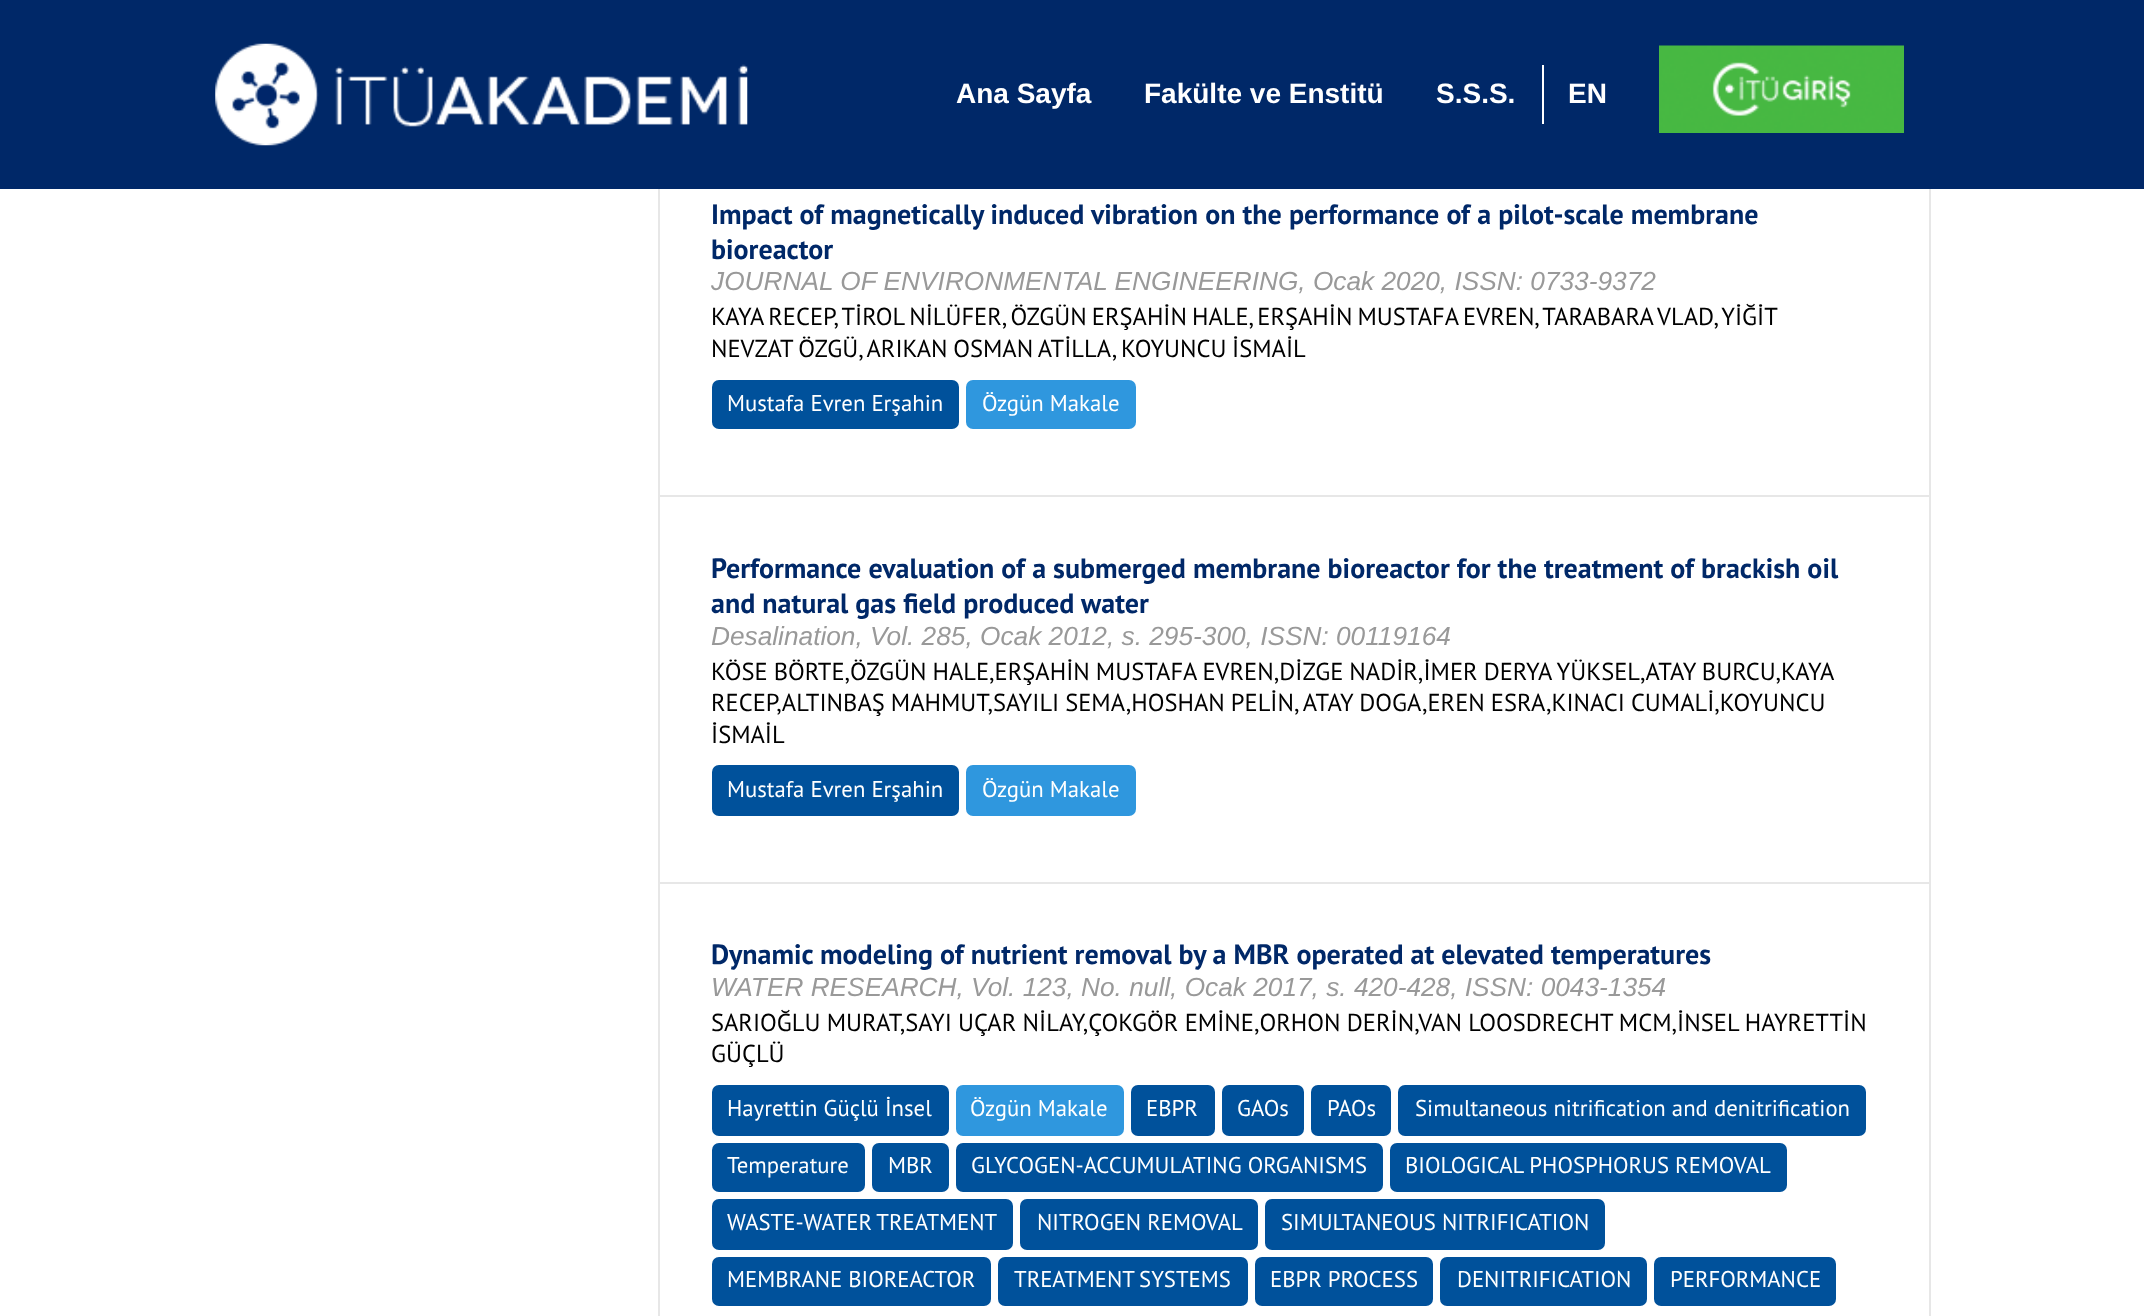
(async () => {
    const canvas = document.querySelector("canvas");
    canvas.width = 2144;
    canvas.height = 1316;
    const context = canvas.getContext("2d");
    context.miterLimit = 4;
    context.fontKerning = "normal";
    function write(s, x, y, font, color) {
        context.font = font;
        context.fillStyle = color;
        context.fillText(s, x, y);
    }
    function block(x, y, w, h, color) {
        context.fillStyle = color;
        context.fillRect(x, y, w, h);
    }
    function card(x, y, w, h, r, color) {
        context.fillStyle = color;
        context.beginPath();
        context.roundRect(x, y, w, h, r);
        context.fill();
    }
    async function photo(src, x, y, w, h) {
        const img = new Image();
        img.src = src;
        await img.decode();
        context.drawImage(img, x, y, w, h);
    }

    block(0, 0, 2144, 1316, "rgb(255, 255, 255)");
    block(0, 0, 2144, 189, "rgb(0, 40, 104)");
    await photo("media/1.png", 215, 43, 533, 103);
    write("Ana Sayfa", 956, 103, "bold 28px Liberation Sans", "rgb(255, 255, 255)");
    write("Fakülte ve Enstitü", 1144, 103, "bold 28px Liberation Sans", "rgb(255, 255, 255)");
    write("S.S.S.", 1436, 103, "bold 28px Liberation Sans", "rgb(255, 255, 255)");
    block(1542, 65, 2, 59, "rgb(255, 255, 255)");
    write("EN", 1568, 103, "bold 28px Liberation Sans", "rgb(255, 255, 255)");
    await photo("media/2.png", 1659, 45, 245, 88);
    block(1929, 189, 2, 1127, "rgb(231, 231, 231)");
    block(658, 882, 2, 434, "rgb(231, 231, 231)");
    block(658, 882, 1272, 2, "rgb(231, 231, 231)");
    block(658, 495, 2, 389, "rgb(231, 231, 231)");
    block(658, 495, 1272, 2, "rgb(231, 231, 231)");
    block(658, 189, 2, 308, "rgb(231, 231, 231)");
    write("Impact of magnetically induced vibration on the performance of a pilot-scale membrane", 711, 224, "bold 28px PT Sans", "rgb(0, 40, 104)");
    write("bioreactor", 711, 259, "bold 28px PT Sans", "rgb(0, 40, 104)");
    write("JOURNAL OF ENVIRONMENTAL ENGINEERING, Ocak 2020, ISSN: 0733-9372", 711, 290, "italic 26.25px Liberation Sans", "rgb(153, 153, 153)");
    context.wordSpacing = "-1.5px";
    write("KAYA RECEP, TİROL NİLÜFER, ÖZGÜN ERŞAHİN HALE, ERŞAHİN MUSTAFA EVREN, TARABARA VLAD, YİĞİT", 711, 325, "24.5px PT Sans", "rgb(0, 0, 0)");
    context.wordSpacing = "-1px";
    write("NEVZAT ÖZGÜ, ARIKAN OSMAN ATİLLA, KOYUNCU İSMAİL", 711, 357, "24.5px PT Sans", "rgb(0, 0, 0)");
    card(712, 380, 247, 49, 7, "rgb(0, 81, 155)");
    context.wordSpacing = "0px";
    write("Mustafa Evren Erşahin", 727, 411, "22.75px PT Sans", "rgb(255, 255, 255)");
    card(966, 380, 170, 49, 7, "rgb(47, 151, 222)");
    write("Özgün Makale", 982, 411, "22.75px PT Sans", "rgb(255, 255, 255)");
    write("Performance evaluation of a submerged membrane bioreactor for the treatment of brackish oil", 711, 578, "bold 28px PT Sans", "rgb(0, 40, 104)");
    write("and natural gas field produced water", 711, 613, "bold 28px PT Sans", "rgb(0, 40, 104)");
    write("Desalination, Vol. 285, Ocak 2012, s. 295-300, ISSN: 00119164", 711, 645, "italic 26.25px Liberation Sans", "rgb(153, 153, 153)");
    context.wordSpacing = "-0.5px";
    write("KÖSE BÖRTE,ÖZGÜN HALE,ERŞAHİN MUSTAFA EVREN,DİZGE NADİR,İMER DERYA YÜKSEL,ATAY BURCU,KAYA", 711, 680, "24.5px PT Sans", "rgb(0, 0, 0)");
    write("RECEP,ALTINBAŞ MAHMUT,SAYILI SEMA,HOSHAN PELİN, ATAY DOGA,EREN ESRA,KINACI CUMALİ,KOYUNCU", 711, 711, "24.5px PT Sans", "rgb(0, 0, 0)");
    context.wordSpacing = "0px";
    write("İSMAİL", 711, 743, "24.5px PT Sans", "rgb(0, 0, 0)");
    card(712, 765, 247, 51, 7, "rgb(0, 81, 155)");
    write("Mustafa Evren Erşahin", 727, 797, "22.75px PT Sans", "rgb(255, 255, 255)");
    card(966, 765, 170, 51, 7, "rgb(47, 151, 222)");
    write("Özgün Makale", 982, 797, "22.75px PT Sans", "rgb(255, 255, 255)");
    write("Dynamic modeling of nutrient removal by a MBR operated at elevated temperatures", 711, 964, "bold 28px PT Sans", "rgb(0, 40, 104)");
    write("WATER RESEARCH, Vol. 123, No. null, Ocak 2017, s. 420-428, ISSN: 0043-1354", 711, 996, "italic 26.25px Liberation Sans", "rgb(153, 153, 153)");
    context.wordSpacing = "-0.25px";
    write("SARIOĞLU MURAT,SAYI UÇAR NİLAY,ÇOKGÖR EMİNE,ORHON DERİN,VAN LOOSDRECHT MCM,İNSEL HAYRETTİN", 711, 1031, "24.5px PT Sans", "rgb(0, 0, 0)");
    context.wordSpacing = "0px";
    write("GÜÇLÜ", 711, 1062, "24.5px PT Sans", "rgb(0, 0, 0)");
    card(712, 1085, 237, 51, 7, "rgb(0, 81, 155)");
    write("Hayrettin Güçlü İnsel", 727, 1116, "22.75px PT Sans", "rgb(255, 255, 255)");
    card(956, 1085, 168, 51, 7, "rgb(47, 151, 222)");
    write("Özgün Makale", 970, 1116, "22.75px PT Sans", "rgb(255, 255, 255)");
    card(1131, 1085, 84, 51, 7, "rgb(0, 81, 155)");
    write("EBPR", 1146, 1116, "22.75px PT Sans", "rgb(255, 255, 255)");
    card(1222, 1085, 82, 51, 7, "rgb(0, 81, 155)");
    write("GAOs", 1237, 1116, "22.75px PT Sans", "rgb(255, 255, 255)");
    card(1311, 1085, 80, 51, 7, "rgb(0, 81, 155)");
    write("PAOs", 1327, 1116, "22.75px PT Sans", "rgb(255, 255, 255)");
    card(1398, 1085, 468, 51, 7, "rgb(0, 81, 155)");
    write("Simultaneous nitrification and denitrification", 1415, 1116, "22.75px PT Sans", "rgb(255, 255, 255)");
    card(712, 1143, 153, 49, 7, "rgb(0, 81, 155)");
    write("Temperature", 727, 1173, "22.75px PT Sans", "rgb(255, 255, 255)");
    card(872, 1143, 77, 49, 7, "rgb(0, 81, 155)");
    write("MBR", 888, 1173, "22.75px PT Sans", "rgb(255, 255, 255)");
    card(956, 1143, 427, 49, 7, "rgb(0, 81, 155)");
    write("GLYCOGEN-ACCUMULATING ORGANISMS", 971, 1173, "22.75px PT Sans", "rgb(255, 255, 255)");
    card(1390, 1143, 397, 49, 7, "rgb(0, 81, 155)");
    write("BIOLOGICAL PHOSPHORUS REMOVAL", 1405, 1173, "22.75px PT Sans", "rgb(255, 255, 255)");
    card(712, 1199, 301, 51, 7, "rgb(0, 81, 155)");
    context.wordSpacing = "-1px";
    write("WASTE-WATER TREATMENT", 727, 1230, "22.75px PT Sans", "rgb(255, 255, 255)");
    card(1020, 1199, 238, 51, 7, "rgb(0, 81, 155)");
    context.wordSpacing = "0px";
    write("NITROGEN REMOVAL", 1037, 1230, "22.75px PT Sans", "rgb(255, 255, 255)");
    card(1265, 1199, 340, 51, 7, "rgb(0, 81, 155)");
    write("SIMULTANEOUS NITRIFICATION", 1281, 1230, "22.75px PT Sans", "rgb(255, 255, 255)");
    card(712, 1257, 279, 49, 7, "rgb(0, 81, 155)");
    write("MEMBRANE BIOREACTOR", 727, 1287, "22.75px PT Sans", "rgb(255, 255, 255)");
    card(998, 1257, 250, 49, 7, "rgb(0, 81, 155)");
    context.wordSpacing = "-1px";
    write("TREATMENT SYSTEMS", 1014, 1287, "22.75px PT Sans", "rgb(255, 255, 255)");
    card(1255, 1257, 178, 49, 7, "rgb(0, 81, 155)");
    context.wordSpacing = "0px";
    write("EBPR PROCESS", 1270, 1287, "22.75px PT Sans", "rgb(255, 255, 255)");
    card(1440, 1257, 207, 49, 7, "rgb(0, 81, 155)");
    write("DENITRIFICATION", 1457, 1287, "22.75px PT Sans", "rgb(255, 255, 255)");
    card(1654, 1257, 182, 49, 7, "rgb(0, 81, 155)");
    write("PERFORMANCE", 1670, 1287, "22.75px PT Sans", "rgb(255, 255, 255)");
})();
